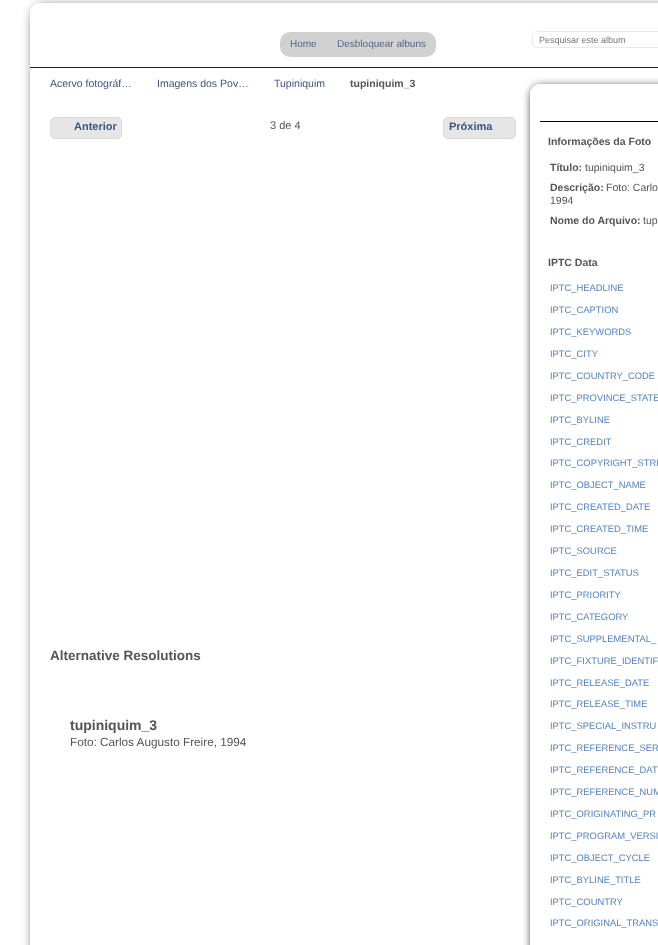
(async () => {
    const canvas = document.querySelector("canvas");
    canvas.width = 658;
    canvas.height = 945;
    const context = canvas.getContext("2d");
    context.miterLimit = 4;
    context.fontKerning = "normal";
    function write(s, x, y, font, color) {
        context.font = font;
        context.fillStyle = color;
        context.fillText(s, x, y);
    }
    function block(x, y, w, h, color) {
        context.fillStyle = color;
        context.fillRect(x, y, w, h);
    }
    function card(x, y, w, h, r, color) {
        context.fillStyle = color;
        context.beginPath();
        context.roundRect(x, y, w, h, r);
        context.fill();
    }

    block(0, 0, 658, 945, "rgb(255, 255, 255)");
    context.save();
    context.beginPath();
    context.moveTo(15, 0);
    context.lineTo(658, 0);
    context.lineTo(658, 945);
    context.lineTo(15, 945);
    context.closePath();
    context.moveTo(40, 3);
    context.lineTo(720, 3);
    context.bezierCurveTo(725.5, 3, 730, 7.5, 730, 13);
    context.lineTo(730, 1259);
    context.bezierCurveTo(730, 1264.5, 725.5, 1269, 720, 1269);
    context.lineTo(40, 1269);
    context.bezierCurveTo(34.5, 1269, 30, 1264.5, 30, 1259);
    context.lineTo(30, 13);
    context.bezierCurveTo(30, 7.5, 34.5, 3, 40, 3);
    context.closePath();
    context.clip("evenodd");
    context.fillStyle = "rgb(51, 51, 51)";
    context.filter = "blur(6px)";
    context.beginPath();
    context.roundRect(34, 7, 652, 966, 10);
    context.fill();
    context.filter = "none";
    context.restore();
    block(30, 67, 628, 1, "rgb(30, 30, 30)");
    card(280, 32, 156, 25, 10, "rgb(209, 209, 209)");
    write("Home", 290, 47, "10px Liberation Sans", "rgb(80, 102, 141)");
    write("Desbloquear albuns", 337, 47, "10px Liberation Sans", "rgb(80, 102, 141)");
    context.beginPath();
    context.moveTo(537, 31.5);
    context.lineTo(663.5, 31.5);
    context.lineTo(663.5, 47.5);
    context.lineTo(537, 47.5);
    context.bezierCurveTo(534.5, 47.5, 532.5, 45.5, 532.5, 43);
    context.lineTo(532.5, 36);
    context.bezierCurveTo(532.5, 33.5, 534.5, 31.5, 537, 31.5);
    context.closePath();
    context.strokeStyle = "rgb(234, 234, 234)";
    context.stroke();
    write("Pesquisar este album", 539, 43, "9px Liberation Sans", "rgb(117, 117, 117)");
    write("Acervo fotográf…", 50, 87, "10.5px Liberation Sans", "rgb(60, 85, 128)");
    write("Imagens dos Pov…", 157, 87, "10.5px Liberation Sans", "rgb(60, 85, 128)");
    write("Tupiniquim", 274, 87, "10.5px Liberation Sans", "rgb(60, 85, 128)");
    write("tupiniquim_3", 350, 87, "bold 10.5px Liberation Sans", "rgb(85, 85, 85)");
    context.fillStyle = "rgb(230, 230, 230)";
    context.beginPath();
    context.roundRect(50.5, 117.5, 71, 21, 4.5);
    context.fill();
    context.strokeStyle = "rgb(219, 219, 219)";
    context.stroke();
    write("Anterior", 74, 130, "bold 11px Liberation Sans", "rgb(60, 85, 128)");
    write("3 de 4", 270, 129, "11px Liberation Sans", "rgb(85, 85, 85)");
    context.fillStyle = "rgb(230, 230, 230)";
    context.beginPath();
    context.roundRect(443.5, 117.5, 72, 21, 4.5);
    context.fill();
    context.stroke();
    write("Próxima", 449, 130, "bold 11px Liberation Sans", "rgb(60, 85, 128)");
    write("Alternative Resolutions", 50, 660, "bold 13.5px Liberation Sans", "rgb(85, 85, 85)");
    write("tupiniquim_3", 70, 730, "bold 14px Liberation Sans", "rgb(85, 85, 85)");
    write("Foto: Carlos Augusto Freire, 1994", 70, 746, "11.75px Liberation Sans", "rgb(85, 85, 85)");
    context.save();
    context.beginPath();
    context.moveTo(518, 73);
    context.lineTo(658, 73);
    context.lineTo(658, 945);
    context.lineTo(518, 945);
    context.closePath();
    context.moveTo(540, 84);
    context.lineTo(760, 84);
    context.bezierCurveTo(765.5, 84, 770, 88.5, 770, 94);
    context.lineTo(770, 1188);
    context.bezierCurveTo(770, 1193.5, 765.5, 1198, 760, 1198);
    context.lineTo(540, 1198);
    context.bezierCurveTo(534.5, 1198, 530, 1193.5, 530, 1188);
    context.lineTo(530, 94);
    context.bezierCurveTo(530, 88.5, 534.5, 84, 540, 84);
    context.closePath();
    context.clip("evenodd");
    context.fillStyle = "rgb(51, 51, 51)";
    context.filter = "blur(4px)";
    context.beginPath();
    context.roundRect(531, 86, 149, 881, 10);
    context.fill();
    context.filter = "none";
    context.restore();
    block(540, 121, 118, 1, "rgb(5, 5, 5)");
    write("Informações da Foto", 548, 145, "bold 10.5px Liberation Sans", "rgb(85, 85, 85)");
    write("Título:", 550, 171, "bold 10.5px Liberation Sans", "rgb(85, 85, 85)");
    write("tupiniquim_3", 585, 171, "10.5px Liberation Sans", "rgb(85, 85, 85)");
    write("Descrição:", 550, 191, "bold 10.5px Liberation Sans", "rgb(85, 85, 85)");
    write("Foto: Carlo", 606, 191, "10.5px Liberation Sans", "rgb(85, 85, 85)");
    write("1994", 550, 204, "10.5px Liberation Sans", "rgb(85, 85, 85)");
    write("Nome do Arquivo:", 550, 224, "bold 10.5px Liberation Sans", "rgb(85, 85, 85)");
    write("tup", 643, 224, "10.5px Liberation Sans", "rgb(85, 85, 85)");
    write("IPTC Data", 548, 266, "bold 10.5px Liberation Sans", "rgb(85, 85, 85)");
    write("IPTC_HEADLINE", 550, 291, "9.4px Liberation Sans", "rgb(83, 130, 191)");
    write("IPTC_CAPTION", 550, 313, "9.4px Liberation Sans", "rgb(83, 130, 191)");
    write("IPTC_KEYWORDS", 550, 335, "9.4px Liberation Sans", "rgb(83, 130, 191)");
    write("IPTC_CITY", 550, 357, "9.4px Liberation Sans", "rgb(83, 130, 191)");
    write("IPTC_COUNTRY_CODE", 550, 379, "9.4px Liberation Sans", "rgb(83, 130, 191)");
    write("IPTC_PROVINCE_STATE", 550, 401, "9.4px Liberation Sans", "rgb(83, 130, 191)");
    write("IPTC_BYLINE", 550, 423, "9.4px Liberation Sans", "rgb(83, 130, 191)");
    write("IPTC_CREDIT", 550, 445, "9.4px Liberation Sans", "rgb(83, 130, 191)");
    write("IPTC_COPYRIGHT_STRI", 550, 466, "9.4px Liberation Sans", "rgb(83, 130, 191)");
    write("IPTC_OBJECT_NAME", 550, 488, "9.4px Liberation Sans", "rgb(83, 130, 191)");
    write("IPTC_CREATED_DATE", 550, 510, "9.4px Liberation Sans", "rgb(83, 130, 191)");
    write("IPTC_CREATED_TIME", 550, 532, "9.4px Liberation Sans", "rgb(83, 130, 191)");
    write("IPTC_SOURCE", 550, 554, "9.4px Liberation Sans", "rgb(83, 130, 191)");
    write("IPTC_EDIT_STATUS", 550, 576, "9.4px Liberation Sans", "rgb(83, 130, 191)");
    write("IPTC_PRIORITY", 550, 598, "9.4px Liberation Sans", "rgb(83, 130, 191)");
    write("IPTC_CATEGORY", 550, 620, "9.4px Liberation Sans", "rgb(83, 130, 191)");
    write("IPTC_SUPPLEMENTAL_", 550, 642, "9.4px Liberation Sans", "rgb(83, 130, 191)");
    write("IPTC_FIXTURE_IDENTIF", 550, 664, "9.4px Liberation Sans", "rgb(83, 130, 191)");
    write("IPTC_RELEASE_DATE", 550, 686, "9.4px Liberation Sans", "rgb(83, 130, 191)");
    write("IPTC_RELEASE_TIME", 550, 707, "9.4px Liberation Sans", "rgb(83, 130, 191)");
    write("IPTC_SPECIAL_INSTRU", 550, 729, "9.4px Liberation Sans", "rgb(83, 130, 191)");
    write("IPTC_REFERENCE_SER", 550, 751, "9.4px Liberation Sans", "rgb(83, 130, 191)");
    write("IPTC_REFERENCE_DAT", 550, 773, "9.4px Liberation Sans", "rgb(83, 130, 191)");
    write("IPTC_REFERENCE_NUM", 550, 795, "9.4px Liberation Sans", "rgb(83, 130, 191)");
    write("IPTC_ORIGINATING_PR", 550, 817, "9.4px Liberation Sans", "rgb(83, 130, 191)");
    write("IPTC_PROGRAM_VERSI", 550, 839, "9.4px Liberation Sans", "rgb(83, 130, 191)");
    write("IPTC_OBJECT_CYCLE", 550, 861, "9.4px Liberation Sans", "rgb(83, 130, 191)");
    write("IPTC_BYLINE_TITLE", 550, 883, "9.4px Liberation Sans", "rgb(83, 130, 191)");
    write("IPTC_COUNTRY", 550, 905, "9.4px Liberation Sans", "rgb(83, 130, 191)");
    write("IPTC_ORIGINAL_TRANS", 550, 926, "9.4px Liberation Sans", "rgb(83, 130, 191)");
})();
